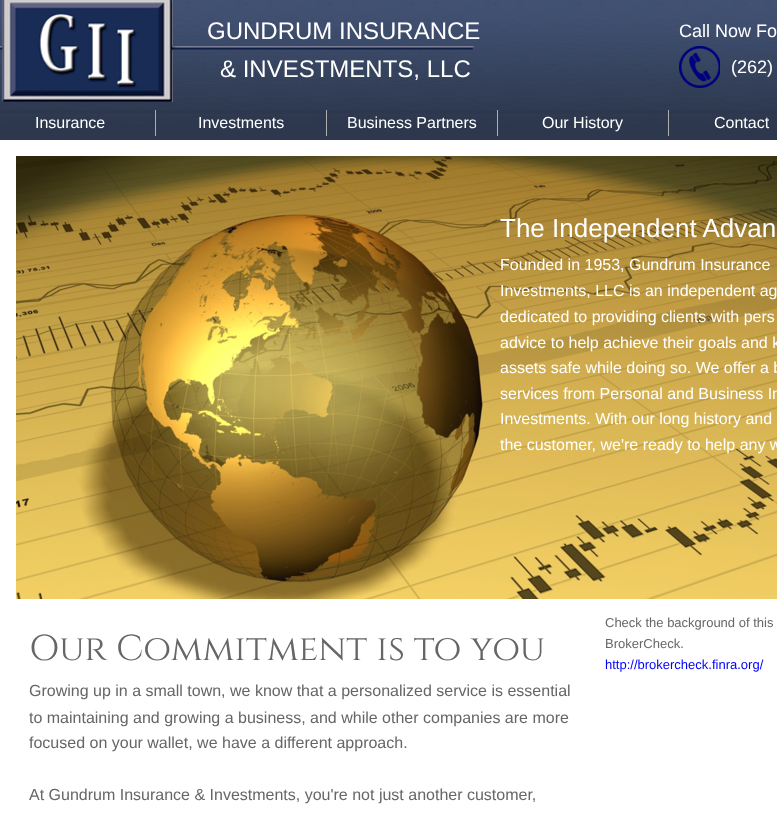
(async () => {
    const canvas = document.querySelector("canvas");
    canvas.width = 777;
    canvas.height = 816;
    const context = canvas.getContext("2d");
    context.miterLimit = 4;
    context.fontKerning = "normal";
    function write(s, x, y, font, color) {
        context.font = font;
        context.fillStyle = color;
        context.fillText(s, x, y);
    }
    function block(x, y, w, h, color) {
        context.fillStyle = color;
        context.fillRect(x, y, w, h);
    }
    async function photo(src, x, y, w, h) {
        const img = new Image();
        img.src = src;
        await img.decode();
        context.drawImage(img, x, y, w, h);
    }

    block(0, 0, 777, 816, "rgb(255, 255, 255)");
    await photo("media/1.png", 0, 0, 777, 140);
    await photo("media/2.png", 0, 0, 474, 102);
    write("GUNDRUM INSURANCE", 207, 39, "24px Liberation Sans", "rgb(255, 255, 255)");
    write("& INVESTMENTS, LLC", 220, 77, "24px Liberation Sans", "rgb(255, 255, 255)");
    write("Call Now Fo", 679, 37, "18px Liberation Sans", "rgb(255, 255, 255)");
    await photo("media/3.png", 679, 46, 41, 42);
    write("(262)", 731, 73, "18px Liberation Sans", "rgb(255, 255, 255)");
    block(0, 110, 155, 4, "rgb(45, 56, 78)");
    block(155, 110, 1, 26, "rgb(174, 174, 174)");
    write("Insurance", 35, 128, "16px Liberation Sans", "rgb(255, 255, 255)");
    block(156, 110, 170, 4, "rgb(45, 56, 78)");
    block(326, 110, 1, 26, "rgb(174, 174, 174)");
    write("Investments", 198, 128, "16px Liberation Sans", "rgb(255, 255, 255)");
    block(327, 110, 170, 4, "rgb(45, 56, 78)");
    block(497, 110, 1, 26, "rgb(174, 174, 174)");
    write("Business Partners", 347, 128, "16px Liberation Sans", "rgb(255, 255, 255)");
    block(498, 110, 170, 4, "rgb(45, 56, 78)");
    block(668, 110, 1, 26, "rgb(174, 174, 174)");
    write("Our History", 542, 128, "16px Liberation Sans", "rgb(255, 255, 255)");
    block(669, 110, 108, 4, "rgb(45, 56, 78)");
    write("Contact", 714, 128, "16px Liberation Sans", "rgb(255, 255, 255)");
    await photo("media/4.png", 16, 156, 761, 443);
    write("The Independent Advan", 500, 237, "26px Liberation Sans", "rgb(255, 255, 255)");
    write("Founded in 1953, Gundrum Insurance", 500, 270, "16px Liberation Sans", "rgb(255, 255, 255)");
    write("Investments, LLC is an independent ag", 500, 296, "16px Liberation Sans", "rgb(255, 255, 255)");
    write("dedicated to providing clients with pers", 500, 322, "16px Liberation Sans", "rgb(255, 255, 255)");
    write("advice to help achieve their goals and k", 500, 348, "16px Liberation Sans", "rgb(255, 255, 255)");
    write("assets safe while doing so. We offer a b", 500, 373, "16px Liberation Sans", "rgb(255, 255, 255)");
    write("services from Personal and Business In", 500, 399, "16px Liberation Sans", "rgb(255, 255, 255)");
    write("Investments. With our long history and", 500, 424, "16px Liberation Sans", "rgb(255, 255, 255)");
    write("the customer, we're ready to help any w", 500, 450, "16px Liberation Sans", "rgb(255, 255, 255)");
    write("Our Commitment is to you", 29, 660, "36px Cinzel", "rgb(102, 102, 102)");
    write("Growing up in a small town, we know that a personalized service is essential", 29, 696, "16px Liberation Sans", "rgb(102, 102, 102)");
    write("to maintaining and growing a business, and while other companies are more", 29, 723, "16px Liberation Sans", "rgb(102, 102, 102)");
    write("focused on your wallet, we have a different approach.", 29, 748, "16px Liberation Sans", "rgb(102, 102, 102)");
    write("At Gundrum Insurance & Investments, you're not just another customer,", 29, 800, "16px Liberation Sans", "rgb(102, 102, 102)");
    write("Check the background of this", 605, 627, "13px Liberation Sans", "rgb(102, 102, 102)");
    write("BrokerCheck.", 605, 648, "13px Liberation Sans", "rgb(102, 102, 102)");
    write("http://brokercheck.finra.org/", 605, 669, "13px Liberation Sans", "rgb(0, 0, 255)");
})();
